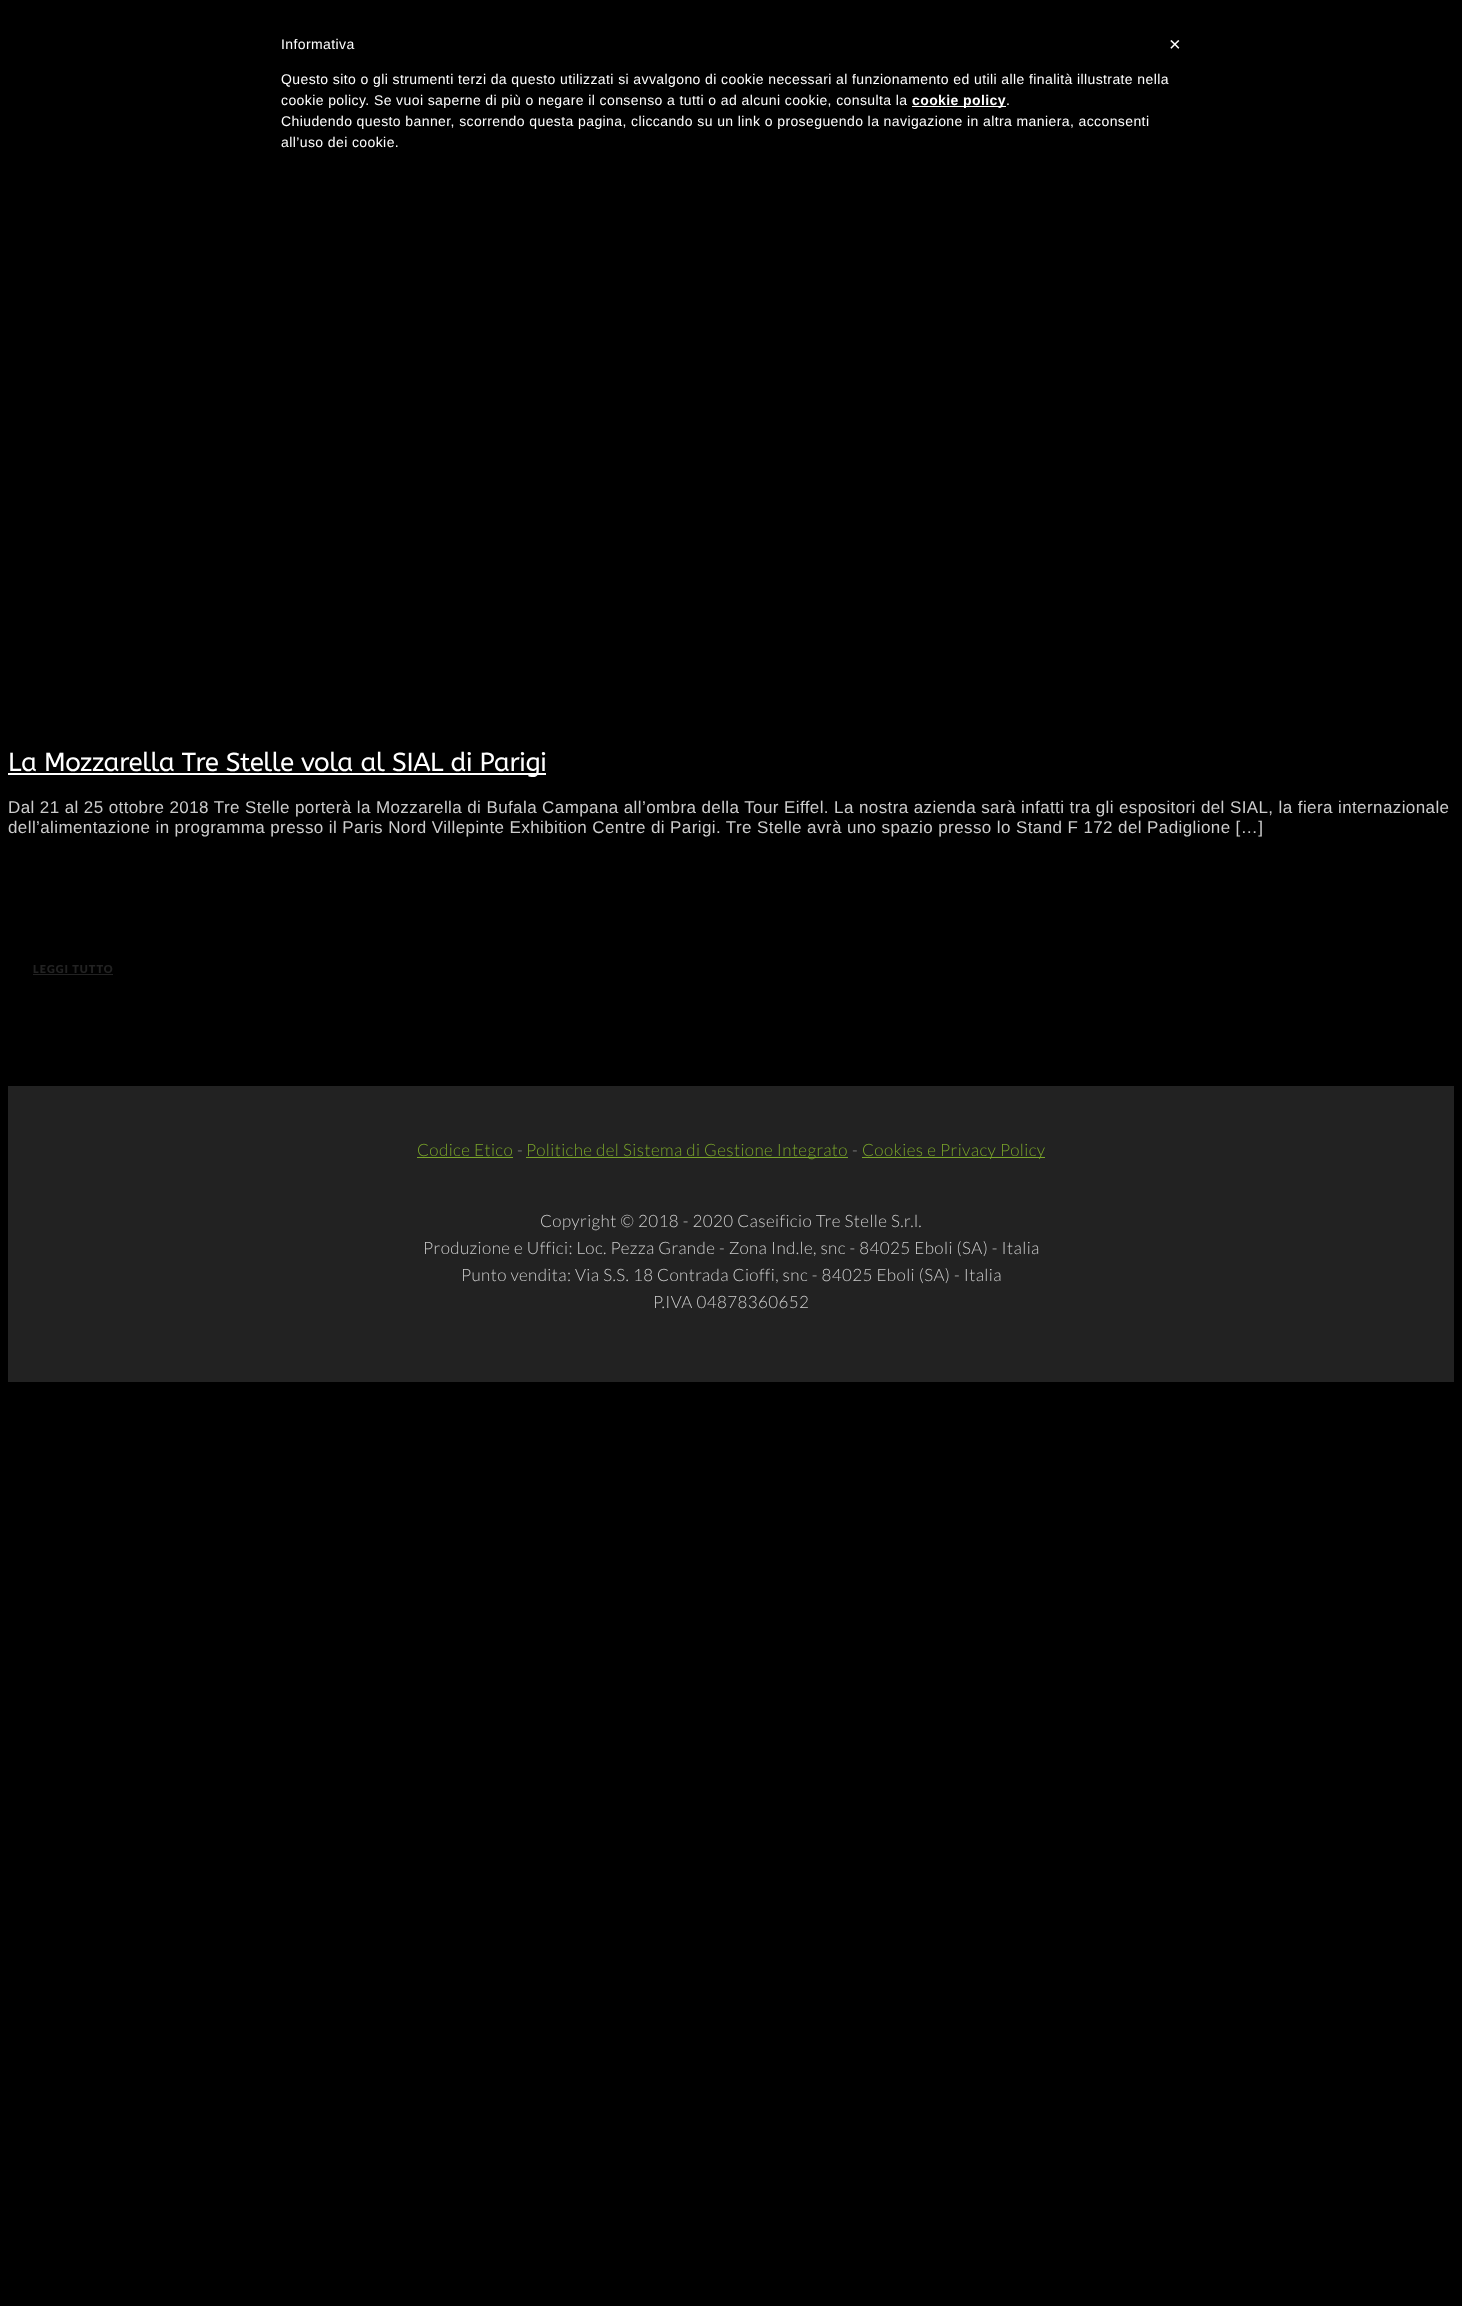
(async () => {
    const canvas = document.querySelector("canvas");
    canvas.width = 1462;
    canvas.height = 2306;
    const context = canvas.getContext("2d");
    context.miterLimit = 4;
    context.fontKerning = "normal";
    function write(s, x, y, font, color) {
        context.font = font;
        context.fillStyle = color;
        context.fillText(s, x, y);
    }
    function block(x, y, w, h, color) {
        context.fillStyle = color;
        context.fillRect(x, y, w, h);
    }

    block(0, 0, 1462, 2306, "rgb(0, 0, 0)");
    context.letterSpacing = "0.4px";
    write("Informativa", 281, 49, "14px Liberation Sans", "rgb(255, 255, 255)");
    write("Questo sito o gli strumenti terzi da questo utilizzati si avvalgono di cookie necessari al funzionamento ed utili alle finalità illustrate nella", 281, 84, "14px Liberation Sans", "rgb(255, 255, 255)");
    write("cookie policy. Se vuoi saperne di più o negare il consenso a tutti o ad alcuni cookie, consulta la", 281, 105, "14px Liberation Sans", "rgb(255, 255, 255)");
    block(912, 106, 94, 1, "rgb(255, 255, 255)");
    write("cookie policy", 912, 105, "bold 14px Liberation Sans", "rgb(255, 255, 255)");
    write(".", 1006, 105, "14px Liberation Sans", "rgb(255, 255, 255)");
    write("Chiudendo questo banner, scorrendo questa pagina, cliccando su un link o proseguendo la navigazione in altra maniera, acconsenti", 281, 126, "14px Liberation Sans", "rgb(255, 255, 255)");
    write("all’uso dei cookie.", 281, 147, "14px Liberation Sans", "rgb(255, 255, 255)");
    write("×", 1169, 51, "20px Liberation Sans", "rgb(255, 255, 255)");
    block(8, 773, 538, 2, "rgb(255, 255, 255)");
    context.letterSpacing = "-0.4px";
    write("La Mozzarella Tre Stelle vola al SIAL di Parigi", 8, 771, "26px ABeeZee", "rgb(255, 255, 255)");
    context.letterSpacing = "0.4px";
    write("Dal 21 al 25 ottobre 2018 Tre Stelle porterà la Mozzarella di Bufala Campana all’ombra della Tour Eiffel. La nostra azienda sarà infatti tra gli espositori del SIAL, la fiera internazionale", 8, 813, "17px Liberation Sans", "rgb(204, 204, 204)");
    write("dell’alimentazione in programma presso il Paris Nord Villepinte Exhibition Centre di Parigi. Tre Stelle avrà uno spazio presso lo Stand F 172 del Padiglione […]", 8, 833, "17px Liberation Sans", "rgb(204, 204, 204)");
    context.letterSpacing = "1px";
    write("LEGGI TUTTO", 33, 973, "900 11px Lato", "rgb(34, 34, 34)");
    block(33, 974, 80, 1, "rgb(34, 34, 34)");
    block(8, 1086, 1446, 296, "rgb(34, 34, 34)");
    context.letterSpacing = "0.4px";
    write("Codice Etico", 417, 1156, "300 17px Lato", "rgb(122, 165, 42)");
    block(417, 1157, 96, 1, "rgb(122, 165, 42)");
    write("-", 517, 1156, "300 17px Lato", "rgb(153, 153, 153)");
    block(526, 1157, 322, 1, "rgb(122, 165, 42)");
    write("Politiche del Sistema di Gestione Integrato", 526, 1156, "300 17px Lato", "rgb(122, 165, 42)");
    write("-", 852, 1156, "300 17px Lato", "rgb(153, 153, 153)");
    block(862, 1157, 183, 1, "rgb(122, 165, 42)");
    write("Cookies e Privacy Policy", 862, 1156, "300 17px Lato", "rgb(122, 165, 42)");
    write("Copyright © 2018 - 2020 Caseificio Tre Stelle S.r.l.", 540, 1227, "300 17px Lato", "rgb(204, 204, 204)");
    write("Produzione e Uffici: Loc. Pezza Grande - Zona Ind.le, snc - 84025 Eboli (SA) - Italia", 423, 1254, "300 17px Lato", "rgb(204, 204, 204)");
    write("Punto vendita: Via S.S. 18 Contrada Cioffi, snc - 84025 Eboli (SA) - Italia", 461, 1281, "300 17px Lato", "rgb(204, 204, 204)");
    write("P.IVA 04878360652", 653, 1308, "300 17px Lato", "rgb(204, 204, 204)");
})();
